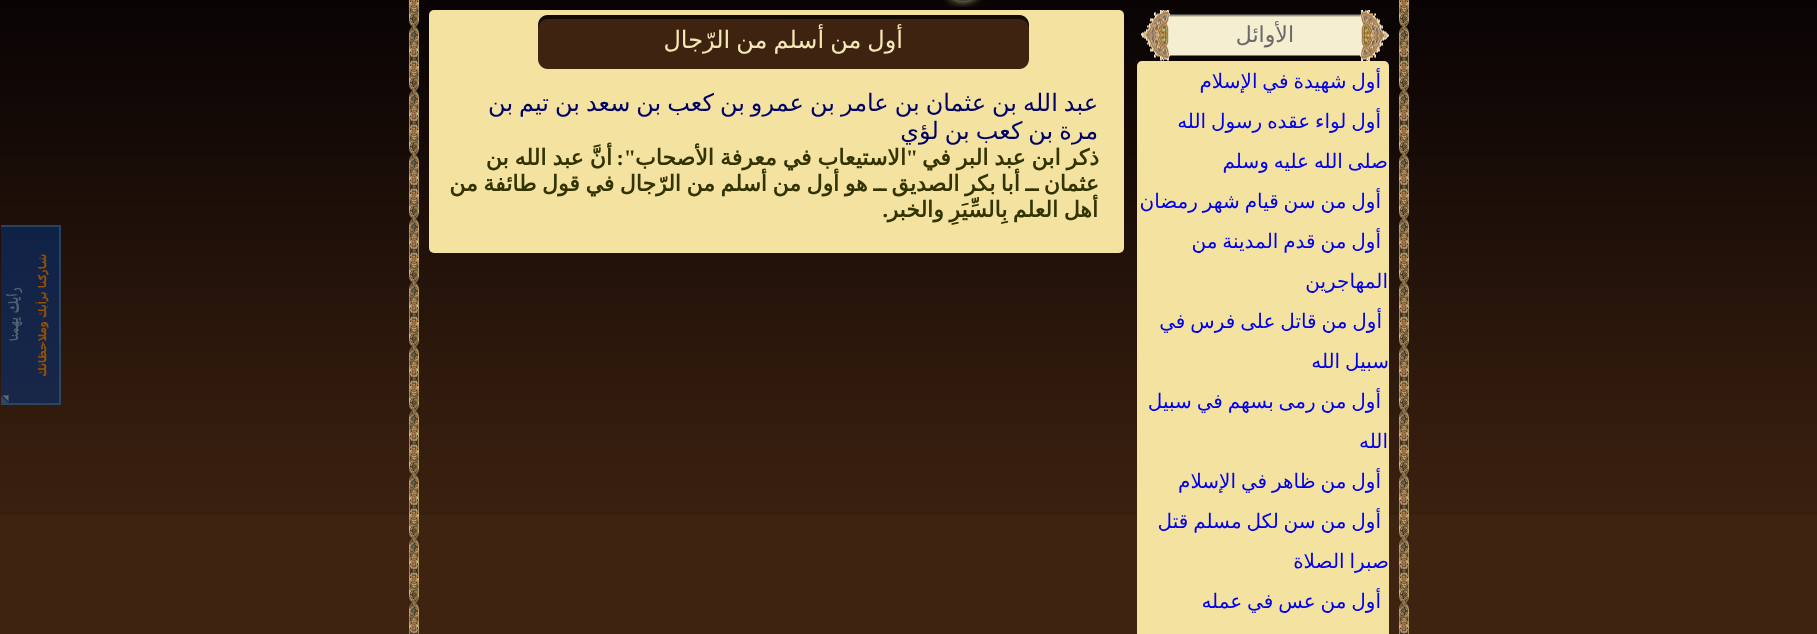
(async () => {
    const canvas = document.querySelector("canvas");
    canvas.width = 1817;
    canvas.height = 634;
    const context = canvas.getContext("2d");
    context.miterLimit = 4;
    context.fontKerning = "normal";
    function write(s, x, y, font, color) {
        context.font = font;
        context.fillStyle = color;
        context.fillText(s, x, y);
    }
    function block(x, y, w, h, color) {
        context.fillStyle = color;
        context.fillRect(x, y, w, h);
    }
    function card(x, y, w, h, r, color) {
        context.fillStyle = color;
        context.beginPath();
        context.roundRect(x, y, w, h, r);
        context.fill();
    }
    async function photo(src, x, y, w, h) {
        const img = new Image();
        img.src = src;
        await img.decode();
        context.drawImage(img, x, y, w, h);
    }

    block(0, 0, 1817, 634, "rgb(62, 35, 16)");
    await photo("media/1.png", 0, 0, 1817, 515);
    await photo("media/2.png", 409, 0, 1000, 634);
    await photo("media/3.png", 944, 0, 39, 7);
    await photo("media/4.png", 1141, 10, 248, 51);
    context.direction = "rtl";
    write("الأوائل", 1294, 42, "22px DejaVu Sans", "rgb(105, 105, 105)");
    card(1137, 61, 252, 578, 5, "rgb(244, 227, 160)");
    context.wordSpacing = "-1.5px";
    write("أول شهيدة في الإسلام", 1381, 88, "20px DejaVu Sans", "rgb(0, 0, 238)");
    write("أول لواء عقده رسول الله", 1381, 128, "20px DejaVu Sans", "rgb(0, 0, 238)");
    context.save();
    context.beginPath();
    context.roundRect(1137, 61, 252, 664, 5);
    context.clip();
    write("صلى الله عليه وسلم", 1388, 168, "20px DejaVu Sans", "rgb(0, 0, 238)");
    context.restore();
    write("أول من سن قيام شهر رمضان", 1381, 208, "20px DejaVu Sans", "rgb(0, 0, 238)");
    write("أول من قدم المدينة من", 1381, 248, "20px DejaVu Sans", "rgb(0, 0, 238)");
    context.wordSpacing = "0px";
    write("المهاجرين", 1388, 288, "20px DejaVu Sans", "rgb(0, 0, 238)");
    context.wordSpacing = "-1.5px";
    write("أول من قاتل على فرس في", 1382, 328, "20px DejaVu Sans", "rgb(0, 0, 238)");
    write("سبيل الله", 1389, 368, "20px DejaVu Sans", "rgb(0, 0, 238)");
    write("أول من رمى بسهم في سبيل", 1381, 408, "20px DejaVu Sans", "rgb(0, 0, 238)");
    context.wordSpacing = "0px";
    write("الله", 1388, 448, "20px DejaVu Sans", "rgb(0, 0, 238)");
    context.wordSpacing = "-1.5px";
    write("أول من ظاهر في الإسلام", 1381, 488, "20px DejaVu Sans", "rgb(0, 0, 238)");
    write("أول من سن لكل مسلم قتل", 1381, 528, "20px DejaVu Sans", "rgb(0, 0, 238)");
    write("صبرا الصلاة", 1389, 568, "20px DejaVu Sans", "rgb(0, 0, 238)");
    write("أول من عس في عمله", 1381, 608, "20px DejaVu Sans", "rgb(0, 0, 238)");
    card(429, 10, 695, 243, 5, "rgb(244, 227, 160)");
    await photo("media/5.png", 538, 15, 491, 54);
    context.wordSpacing = "-1.6px";
    write("أول من أسلم من الرّجال", 903, 48, "24px DejaVu Sans", "rgb(244, 232, 183)");
    write("عبد الله بن عثمان بن عامر بن عمرو بن كعب بن سعد بن تيم بن", 1098, 111, "24px DejaVu Sans", "rgb(0, 0, 102)");
    write("مرة بن كعب بن لؤي", 1098, 139, "24px DejaVu Sans", "rgb(0, 0, 102)");
    context.wordSpacing = "-1px";
    write("ذكر ابن عبد البر في", 1099, 165, "bold 22px DejaVu Sans", "rgb(51, 51, 0)");
    context.wordSpacing = "0px";
    write("\"", 918, 165, "bold 22px Liberation Serif", "rgb(51, 51, 0)");
    context.wordSpacing = "-1px";
    write("الاستيعاب في معرفة الأصحاب", 906, 165, "bold 22px DejaVu Sans", "rgb(51, 51, 0)");
    context.wordSpacing = "0px";
    write("\":", 636, 165, "bold 22px Liberation Serif", "rgb(51, 51, 0)");
    context.wordSpacing = "-1px";
    write("أنَّ عبد الله بن", 612, 165, "bold 22px DejaVu Sans", "rgb(51, 51, 0)");
    context.wordSpacing = "-1.5px";
    write("عثمان ــ أبا بكر الصديق ــ هو أول من أسلم من الرّجال في قول طائفة من", 1099, 191, "bold 22px DejaVu Sans", "rgb(51, 51, 0)");
    context.wordSpacing = "0px";
    write(".", 888, 217, "bold 22px Liberation Serif", "rgb(51, 51, 0)");
    context.wordSpacing = "-1.5px";
    write("أهل العلم بِالسِّيَرِ والخبر", 1098, 217, "bold 22px DejaVu Sans", "rgb(51, 51, 0)");
    await photo("media/6.png", 1, 225, 60, 180);
})();
